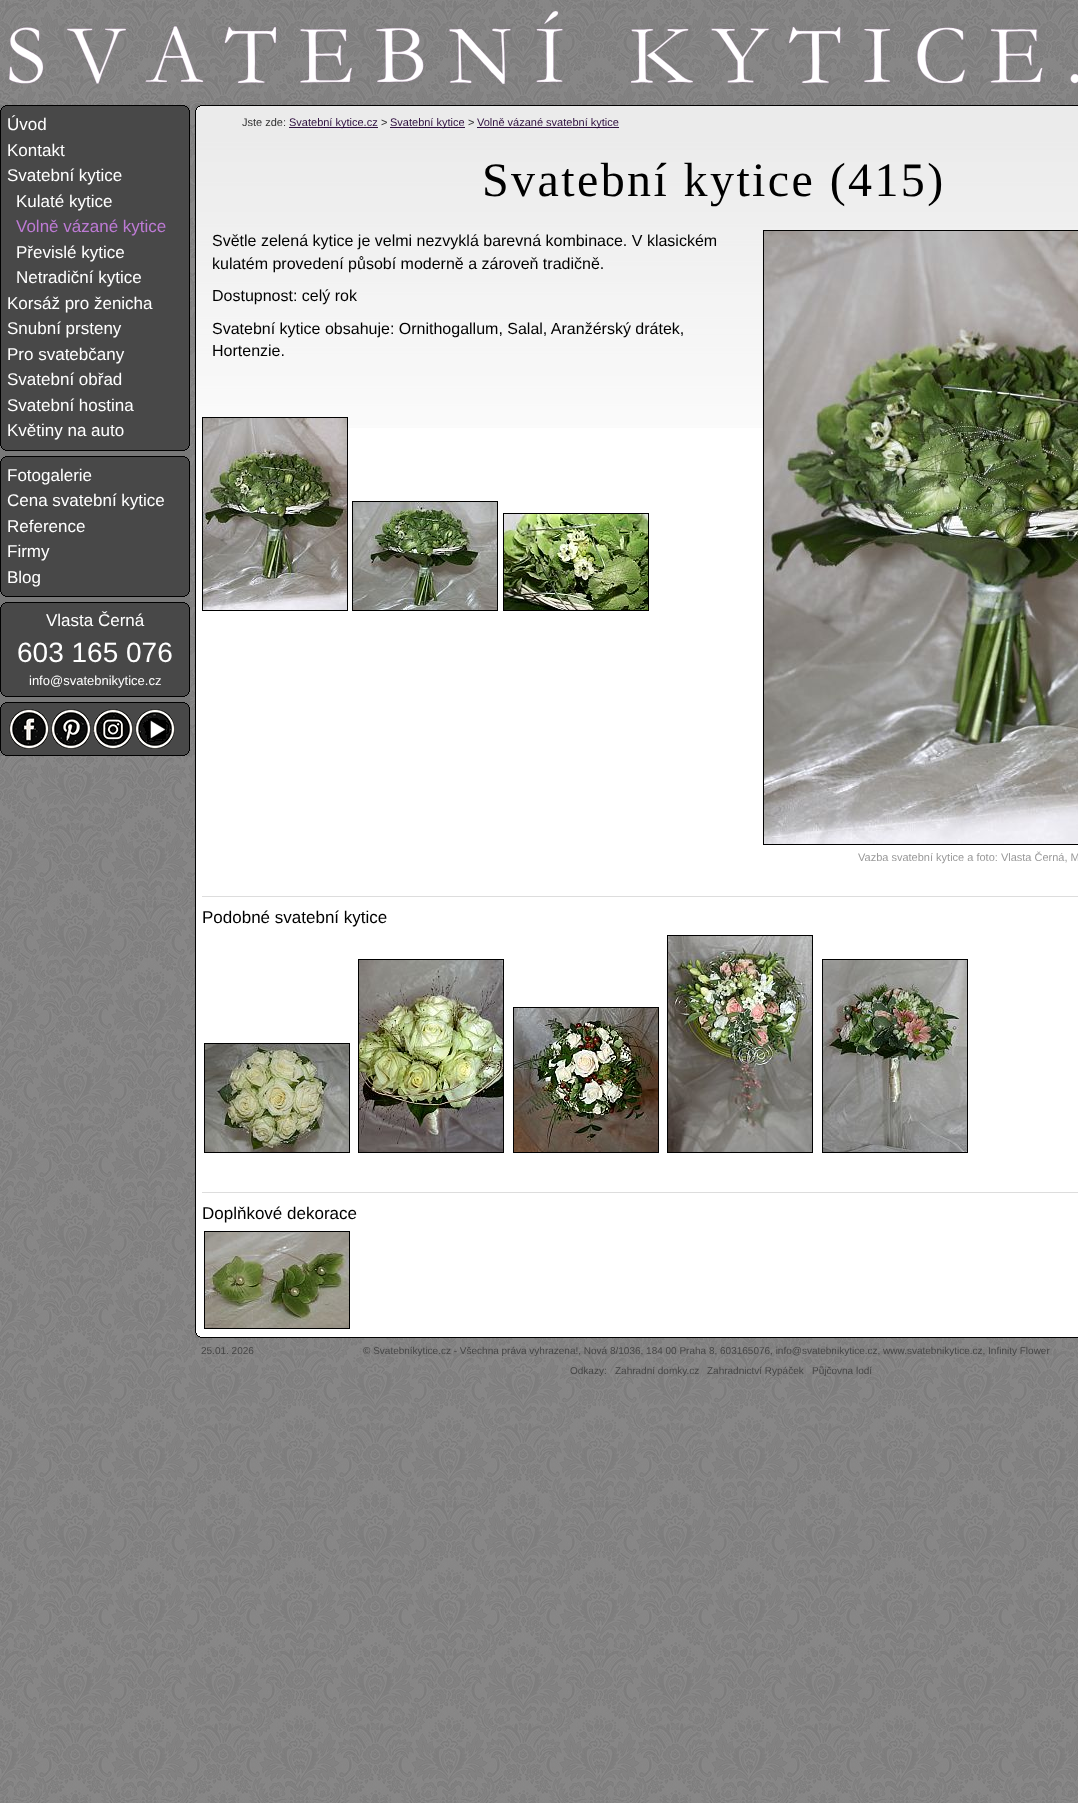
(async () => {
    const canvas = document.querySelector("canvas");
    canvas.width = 1078;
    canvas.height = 1803;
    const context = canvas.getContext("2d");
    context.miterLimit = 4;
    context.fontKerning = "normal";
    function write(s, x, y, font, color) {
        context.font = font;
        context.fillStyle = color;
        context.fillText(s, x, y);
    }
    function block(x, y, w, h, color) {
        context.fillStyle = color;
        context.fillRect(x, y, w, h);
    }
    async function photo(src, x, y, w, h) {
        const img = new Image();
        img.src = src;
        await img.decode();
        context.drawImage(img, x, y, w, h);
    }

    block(0, 0, 1078, 1803, "rgb(255, 255, 255)");
    await photo("media/1.png", 0, 0, 1078, 1803);
    await photo("media/2.png", 9, 11, 1069, 73);
    block(1, 106, 188, 649, "rgb(72, 72, 72)");
    await photo("media/3.png", 0, 105, 7, 7);
    block(7, 105, 176, 1, "rgb(0, 0, 0)");
    await photo("media/4.png", 183, 105, 7, 7);
    block(0, 112, 1, 332, "rgb(0, 0, 0)");
    write("Úvod", 7, 130, "17px Liberation Sans", "rgb(255, 255, 255)");
    write("Kontakt", 7, 156, "17px Liberation Sans", "rgb(255, 255, 255)");
    write("Svatební kytice", 7, 181, "17px Liberation Sans", "rgb(255, 255, 255)");
    write("Kulaté kytice", 16, 207, "17px Liberation Sans", "rgb(255, 255, 255)");
    write("Volně vázané kytice", 16, 232, "17px Liberation Sans", "rgb(189, 122, 212)");
    write("Převislé kytice", 16, 258, "17px Liberation Sans", "rgb(255, 255, 255)");
    write("Netradiční kytice", 16, 283, "17px Liberation Sans", "rgb(255, 255, 255)");
    write("Korsáž pro ženicha", 7, 309, "17px Liberation Sans", "rgb(255, 255, 255)");
    write("Snubní prsteny", 7, 334, "17px Liberation Sans", "rgb(255, 255, 255)");
    write("Pro svatebčany", 7, 360, "17px Liberation Sans", "rgb(255, 255, 255)");
    write("Svatební obřad", 7, 385, "17px Liberation Sans", "rgb(255, 255, 255)");
    write("Svatební hostina", 7, 411, "17px Liberation Sans", "rgb(255, 255, 255)");
    write("Květiny na auto", 7, 436, "17px Liberation Sans", "rgb(255, 255, 255)");
    block(189, 112, 1, 332, "rgb(0, 0, 0)");
    await photo("media/5.png", 0, 444, 7, 7);
    block(7, 450, 176, 1, "rgb(0, 0, 0)");
    await photo("media/6.png", 183, 444, 7, 7);
    block(0, 451, 190, 5, "rgb(120, 120, 120)");
    await photo("media/3.png", 0, 456, 7, 7);
    block(7, 456, 176, 1, "rgb(0, 0, 0)");
    await photo("media/4.png", 183, 456, 7, 7);
    block(0, 463, 1, 127, "rgb(0, 0, 0)");
    write("Fotogalerie", 7, 481, "17px Liberation Sans", "rgb(255, 255, 255)");
    write("Cena svatební kytice", 7, 506, "17px Liberation Sans", "rgb(255, 255, 255)");
    write("Reference", 7, 532, "17px Liberation Sans", "rgb(255, 255, 255)");
    write("Firmy", 7, 557, "17px Liberation Sans", "rgb(255, 255, 255)");
    write("Blog", 7, 583, "17px Liberation Sans", "rgb(255, 255, 255)");
    block(189, 463, 1, 127, "rgb(0, 0, 0)");
    await photo("media/5.png", 0, 590, 7, 7);
    block(7, 596, 176, 1, "rgb(0, 0, 0)");
    await photo("media/6.png", 183, 590, 7, 7);
    block(0, 597, 190, 5, "rgb(120, 120, 120)");
    await photo("media/3.png", 0, 602, 7, 7);
    block(7, 602, 176, 1, "rgb(0, 0, 0)");
    await photo("media/4.png", 183, 602, 7, 7);
    block(0, 609, 1, 81, "rgb(0, 0, 0)");
    write("Vlasta Černá", 46, 626, "17px Liberation Sans", "rgb(255, 255, 255)");
    write("603 165 076", 17, 662, "28px Liberation Sans", "rgb(255, 255, 255)");
    write("info@svatebnikytice.cz", 29, 685, "13px Liberation Sans", "rgb(255, 255, 255)");
    block(189, 609, 1, 81, "rgb(0, 0, 0)");
    await photo("media/5.png", 0, 690, 7, 7);
    block(7, 696, 176, 1, "rgb(0, 0, 0)");
    await photo("media/6.png", 183, 690, 7, 7);
    block(0, 697, 190, 5, "rgb(120, 120, 120)");
    await photo("media/3.png", 0, 702, 7, 7);
    block(7, 702, 176, 1, "rgb(0, 0, 0)");
    await photo("media/4.png", 183, 702, 7, 7);
    block(0, 709, 1, 40, "rgb(0, 0, 0)");
    await photo("media/7.png", 9, 709, 40, 40);
    await photo("media/8.png", 51, 709, 40, 40);
    await photo("media/9.png", 93, 709, 40, 40);
    await photo("media/10.png", 135, 709, 40, 40);
    block(189, 709, 1, 40, "rgb(0, 0, 0)");
    await photo("media/5.png", 0, 749, 7, 7);
    block(7, 755, 176, 1, "rgb(0, 0, 0)");
    await photo("media/6.png", 183, 749, 7, 7);
    block(196, 428, 882, 909, "rgb(255, 255, 255)");
    await photo("media/11.png", 196, 106, 882, 322);
    block(195, 105, 1, 1233, "rgb(0, 0, 0)");
    await photo("media/12.png", 195, 105, 7, 5);
    block(202, 105, 876, 1, "rgb(0, 0, 0)");
    write("Jste zde:", 242, 126, "11px Liberation Sans", "rgb(51, 51, 51)");
    block(289, 127, 89, 1, "rgb(48, 16, 64)");
    write("Svatební kytice.cz", 289, 126, "11px Liberation Sans", "rgb(48, 16, 64)");
    write(">", 381, 126, "11px Liberation Sans", "rgb(51, 51, 51)");
    block(390, 127, 75, 1, "rgb(48, 16, 64)");
    write("Svatební kytice", 390, 126, "11px Liberation Sans", "rgb(48, 16, 64)");
    write(">", 468, 126, "11px Liberation Sans", "rgb(51, 51, 51)");
    block(477, 127, 142, 1, "rgb(48, 16, 64)");
    write("Volně vázané svatební kytice", 477, 126, "11px Liberation Sans", "rgb(48, 16, 64)");
    write("Světle zelená kytice je velmi nezvyklá barevná kombinace. V klasickém", 212, 246, "16px Liberation Sans", "rgb(0, 0, 0)");
    write("kulatém provedení působí moderně a zároveň tradičně.", 212, 269, "16px Liberation Sans", "rgb(0, 0, 0)");
    write("Dostupnost: celý rok", 212, 301, "16px Liberation Sans", "rgb(0, 0, 0)");
    write("Svatební kytice obsahuje: Ornithogallum, Salal, Aranžérský drátek,", 212, 334, "16px Liberation Sans", "rgb(0, 0, 0)");
    write("Hortenzie.", 212, 356, "16px Liberation Sans", "rgb(0, 0, 0)");
    context.strokeStyle = "rgb(0, 0, 0)";
    context.strokeRect(202.5, 417.5, 145, 193);
    await photo("media/13.png", 203, 418, 144, 192);
    context.strokeRect(352.5, 501.5, 145, 109);
    await photo("media/14.png", 353, 502, 144, 108);
    context.strokeRect(503.5, 513.5, 145, 97);
    await photo("media/15.png", 504, 514, 144, 96);
    context.strokeRect(763.5, 230.5, 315, 614);
    await photo("media/16.png", 764, 231, 314, 613);
    write("Vazba svatební kytice a foto: Vlasta Černá, M", 858, 861, "11px Liberation Sans", "rgb(153, 153, 153)");
    block(202, 896, 876, 1, "rgb(221, 221, 221)");
    write("Podobné svatební kytice", 202, 923, "17px Liberation Sans", "rgb(0, 0, 0)");
    context.strokeRect(667.5, 935.5, 145, 217);
    context.strokeRect(358.5, 959.5, 145, 193);
    await photo("media/17.png", 668, 936, 144, 216);
    context.strokeRect(822.5, 959.5, 145, 193);
    await photo("media/18.png", 359, 960, 144, 192);
    context.strokeRect(513.5, 1007.5, 145, 145);
    await photo("media/19.png", 823, 960, 144, 192);
    context.strokeRect(204.5, 1043.5, 145, 109);
    await photo("media/20.png", 514, 1008, 144, 144);
    await photo("media/21.png", 205, 1044, 144, 108);
    block(202, 1192, 876, 1, "rgb(221, 221, 221)");
    write("Doplňkové dekorace", 202, 1219, "17px Liberation Sans", "rgb(0, 0, 0)");
    context.strokeRect(204.5, 1231.5, 145, 97);
    await photo("media/22.png", 205, 1232, 144, 96);
    await photo("media/23.png", 195, 1333, 7, 5);
    block(202, 1337, 876, 1, "rgb(0, 0, 0)");
    context.letterSpacing = "2.4px";
    write("Svatební kytice (415)", 482, 196, "48px Liberation Serif", "rgb(0, 0, 0)");
    context.letterSpacing = "0px";
    write("25.01. 2026", 201, 1354, "10px Liberation Sans", "rgb(68, 68, 68)");
    write("© Svatebníkytice.cz - Všechna práva vyhrazena!, Nová 8/1036, 184 00 Praha 8, 603165076, info@svatebnikytice.cz, www.svatebnikytice.cz, Infinity Flower", 363, 1354, "10px Liberation Sans", "rgb(68, 68, 68)");
    write("Odkazy:", 570, 1374, "10px Liberation Sans", "rgb(68, 68, 68)");
    write("Zahradní domky.cz", 615, 1374, "10px Liberation Sans", "rgb(68, 68, 68)");
    write("Zahradnictví Rypáček", 707, 1374, "10px Liberation Sans", "rgb(68, 68, 68)");
    write("Půjčovna lodí", 812, 1374, "10px Liberation Sans", "rgb(68, 68, 68)");
})();
